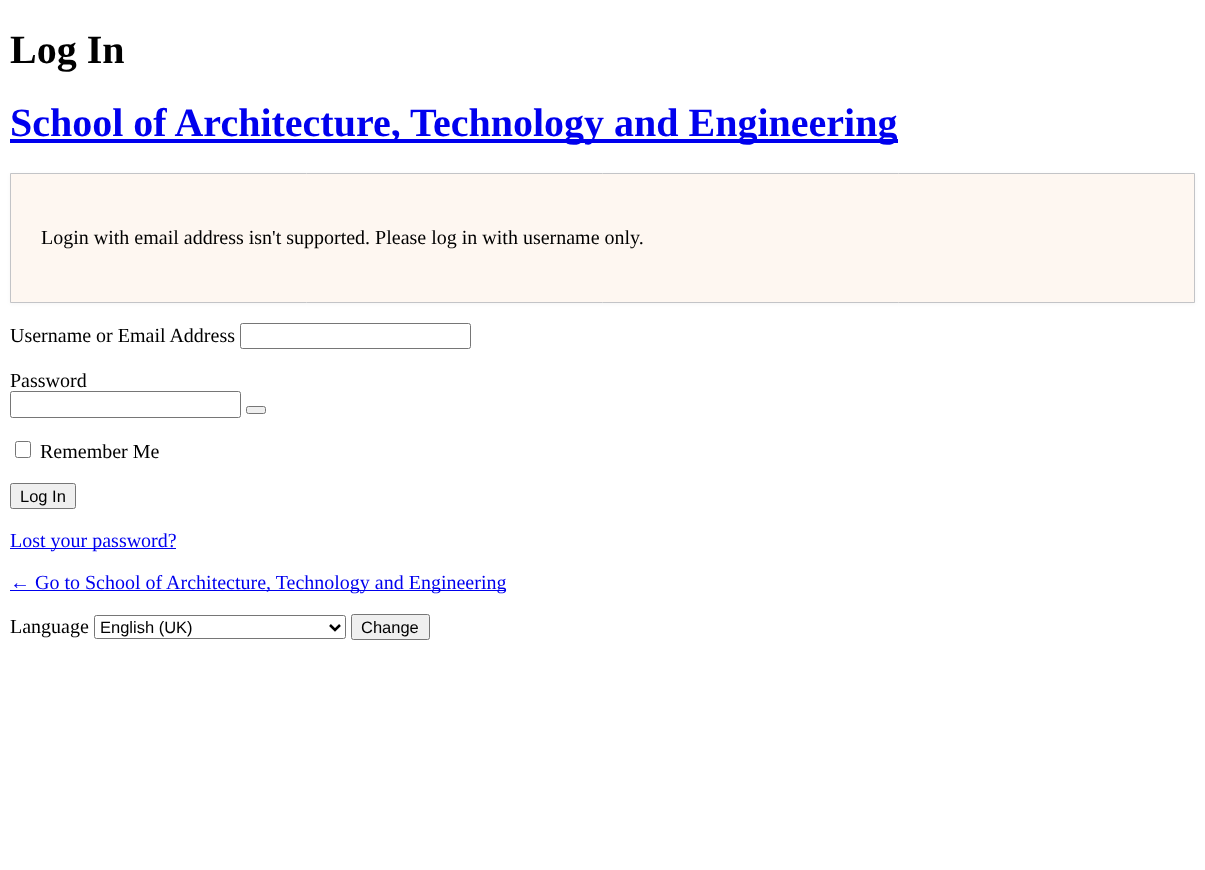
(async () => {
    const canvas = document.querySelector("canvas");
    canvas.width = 1205;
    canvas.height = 870;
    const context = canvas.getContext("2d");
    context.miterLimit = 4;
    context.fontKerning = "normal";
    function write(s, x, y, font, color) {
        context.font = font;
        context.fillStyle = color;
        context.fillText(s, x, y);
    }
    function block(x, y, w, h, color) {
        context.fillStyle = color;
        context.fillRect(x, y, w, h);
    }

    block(0, 0, 1205, 870, "rgb(255, 255, 255)");
    write("Log In", 10, 63, "bold 40px Liberation Serif", "rgb(0, 0, 0)");
    block(10, 139, 888, 4, "rgb(0, 0, 238)");
    write("School of Architecture, Technology and Engineering", 10, 136, "bold 40px Liberation Serif", "rgb(0, 0, 238)");
    context.fillStyle = "rgba(0, 0, 0, 0.04)";
    context.filter = "blur(2px)";
    context.beginPath();
    context.rect(10, 174, 1185, 130);
    context.fill();
    context.filter = "none";
    context.fillStyle = "rgb(254, 247, 241)";
    context.beginPath();
    context.rect(10.5, 173.5, 1184, 129);
    context.fill();
    context.strokeStyle = "rgb(195, 196, 199)";
    context.stroke();
    write("Login with email address isn't supported. Please log in with username only.", 41, 244, "20px Liberation Serif", "rgb(0, 0, 0)");
    write("Username or Email Address", 10, 342, "20px Liberation Serif", "rgb(0, 0, 0)");
    context.beginPath();
    context.roundRect(240.5, 323.5, 230, 25, 2);
    context.strokeStyle = "rgb(118, 118, 118)";
    context.stroke();
    write("Password", 10, 387, "20px Liberation Serif", "rgb(0, 0, 0)");
    context.beginPath();
    context.roundRect(10.5, 391.5, 230, 26, 2);
    context.stroke();
    context.fillStyle = "rgb(239, 239, 239)";
    context.beginPath();
    context.roundRect(246.5, 406.5, 19, 7, 2);
    context.fill();
    context.stroke();
    context.beginPath();
    context.roundRect(15.5, 441.5, 15, 16, 2);
    context.stroke();
    write("Remember Me", 40, 458, "20px Liberation Serif", "rgb(0, 0, 0)");
    context.fillStyle = "rgb(239, 239, 239)";
    context.beginPath();
    context.roundRect(10.5, 483.5, 65, 25, 2);
    context.fill();
    context.stroke();
    write("Log In", 20, 502, "16.5px Liberation Sans", "rgb(0, 0, 0)");
    block(10, 548, 166, 1, "rgb(0, 0, 238)");
    write("Lost your password?", 10, 547, "20px Liberation Serif", "rgb(0, 0, 238)");
    block(10, 590, 496, 1, "rgb(0, 0, 238)");
    write("← Go to School of Architecture, Technology and Engineering", 10, 589, "20px Liberation Serif", "rgb(0, 0, 238)");
    write("Language", 10, 633, "20px Liberation Serif", "rgb(0, 0, 0)");
    context.beginPath();
    context.roundRect(94.5, 615.5, 251, 23, 2);
    context.stroke();
    context.beginPath();
    context.moveTo(330, 625);
    context.lineTo(335, 630);
    context.lineTo(340, 625);
    context.strokeStyle = "rgb(0, 0, 0)";
    context.lineWidth = 2.5;
    context.stroke();
    write("English (UK)", 100, 633, "16.5px Liberation Sans", "rgb(0, 0, 0)");
    context.fillStyle = "rgb(239, 239, 239)";
    context.beginPath();
    context.roundRect(351.5, 614.5, 78, 25, 2);
    context.fill();
    context.strokeStyle = "rgb(118, 118, 118)";
    context.lineWidth = 1;
    context.stroke();
    write("Change", 361, 633, "16.5px Liberation Sans", "rgb(0, 0, 0)");
})();
